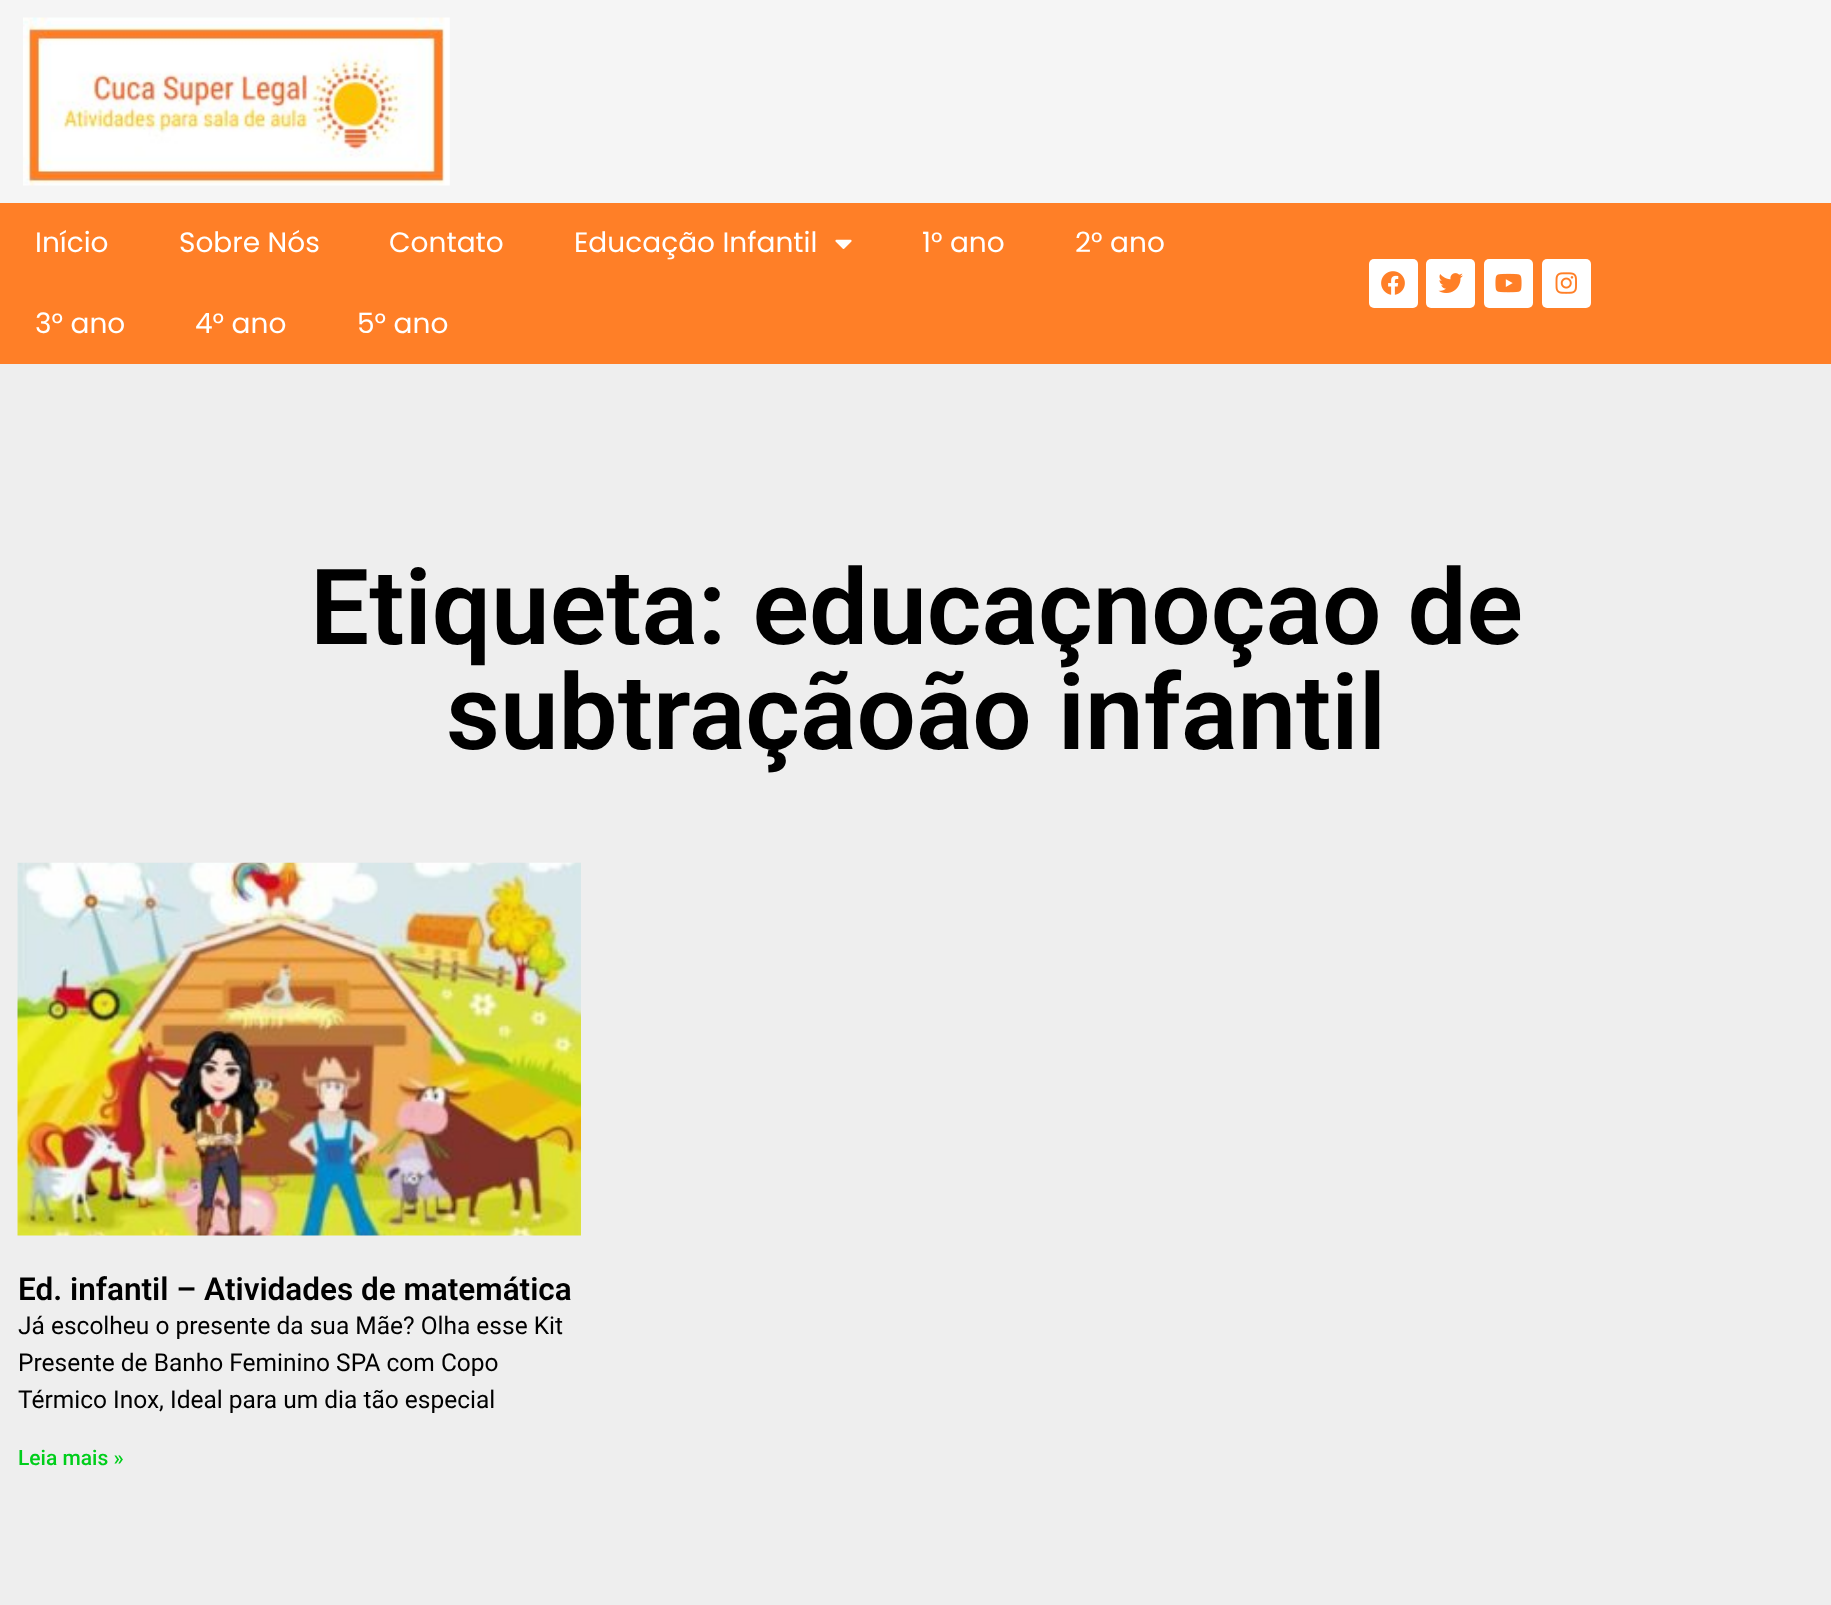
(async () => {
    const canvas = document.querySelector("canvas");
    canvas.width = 1831;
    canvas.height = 1605;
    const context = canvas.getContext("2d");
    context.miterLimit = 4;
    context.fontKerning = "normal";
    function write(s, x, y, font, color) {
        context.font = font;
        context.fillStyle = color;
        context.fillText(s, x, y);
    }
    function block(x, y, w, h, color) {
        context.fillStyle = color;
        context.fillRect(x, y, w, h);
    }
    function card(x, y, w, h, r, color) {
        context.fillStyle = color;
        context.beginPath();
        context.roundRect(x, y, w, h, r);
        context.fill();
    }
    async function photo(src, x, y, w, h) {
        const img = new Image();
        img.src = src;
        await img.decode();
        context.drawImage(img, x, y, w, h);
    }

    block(0, 0, 1831, 1605, "rgb(245, 245, 245)");
    await photo("media/1.png", 23, 17, 427, 169);
    block(0, 203, 1831, 161, "rgb(255, 127, 39)");
    write("Início", 35, 252, "28px Poppins", "rgb(255, 255, 255)");
    write("Sobre Nós", 179, 252, "28px Poppins", "rgb(255, 255, 255)");
    write("Contato", 389, 252, "28px Poppins", "rgb(255, 255, 255)");
    write("Educação Infantil", 574, 252, "28px Poppins", "rgb(255, 255, 255)");
    await photo("media/2.png", 835, 239, 17, 10);
    write("1° ano", 922, 252, "28px Poppins", "rgb(255, 255, 255)");
    write("2° ano", 1075, 252, "28px Poppins", "rgb(255, 255, 255)");
    write("3° ano", 35, 333, "28px Poppins", "rgb(255, 255, 255)");
    write("4° ano", 195, 333, "28px Poppins", "rgb(255, 255, 255)");
    write("5° ano", 357, 333, "28px Poppins", "rgb(255, 255, 255)");
    card(1369, 259, 49, 49, 5, "rgb(255, 255, 255)");
    await photo("media/3.png", 1381, 271, 24, 24);
    card(1426, 259, 49, 49, 5, "rgb(255, 255, 255)");
    await photo("media/4.png", 1438, 273, 25, 20);
    card(1484, 259, 49, 49, 5, "rgb(255, 255, 255)");
    await photo("media/5.png", 1495, 273, 27, 20);
    card(1542, 259, 49, 49, 5, "rgb(255, 255, 255)");
    await photo("media/6.png", 1555, 272, 22, 22);
    block(0, 364, 1831, 1241, "rgb(238, 238, 238)");
    write("Etiqueta: educaçnoçao de", 310, 644, "600 105px Roboto", "rgb(0, 0, 0)");
    write("subtraçãoão infantil", 446, 749, "600 105px Roboto", "rgb(0, 0, 0)");
    await photo("media/7.png", 17, 862, 564, 374);
    write("Ed. infantil – Atividades de matemática", 18, 1300, "600 31.5px Roboto", "rgb(0, 0, 0)");
    write("Já escolheu o presente da sua Mãe? Olha esse Kit", 18, 1334, "24.5px Roboto", "rgb(0, 0, 0)");
    write("Presente de Banho Feminino SPA com Copo", 18, 1371, "24.5px Roboto", "rgb(0, 0, 0)");
    write("Térmico Inox, Ideal para um dia tão especial", 18, 1408, "24.5px Roboto", "rgb(0, 0, 0)");
    write("Leia mais »", 18, 1465, "500 21px Roboto", "rgb(0, 206, 27)");
})();
